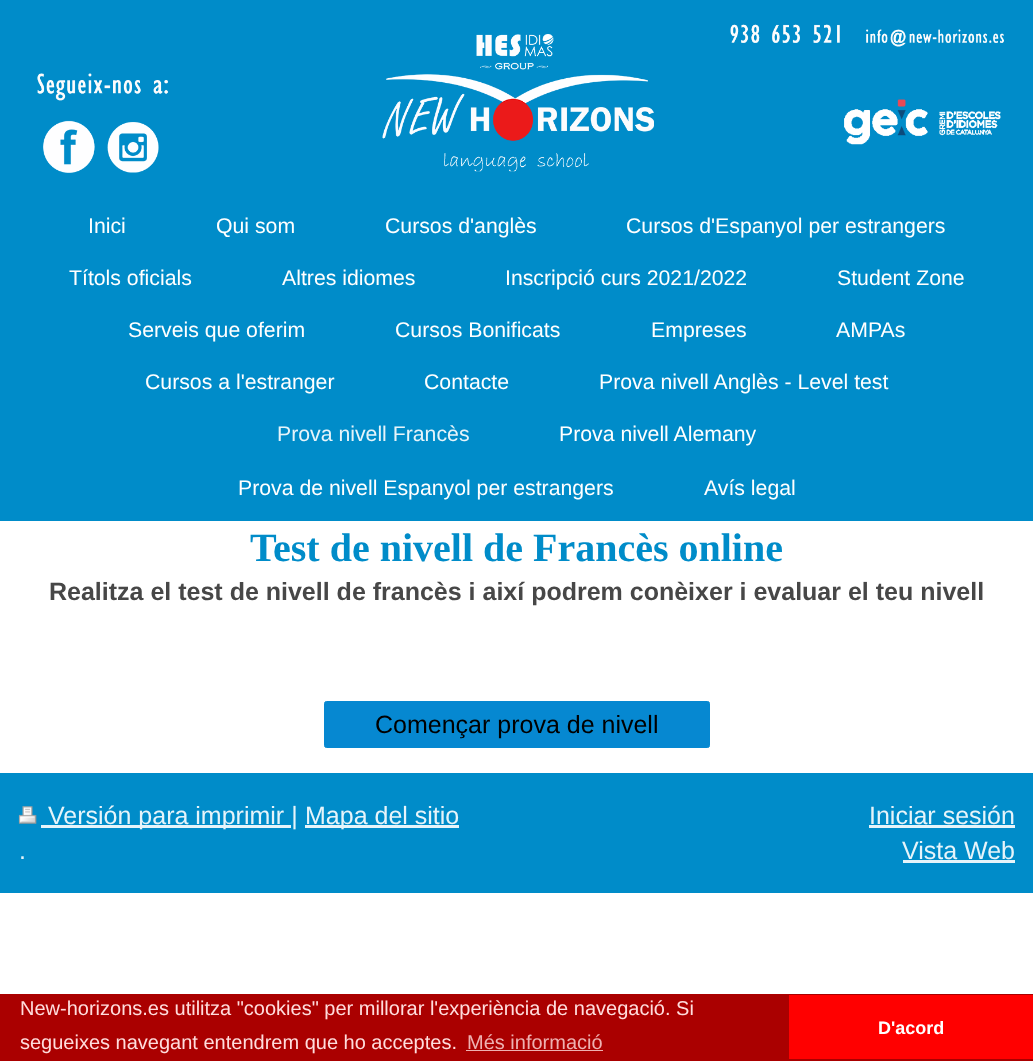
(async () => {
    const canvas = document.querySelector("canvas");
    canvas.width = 1033;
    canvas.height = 1061;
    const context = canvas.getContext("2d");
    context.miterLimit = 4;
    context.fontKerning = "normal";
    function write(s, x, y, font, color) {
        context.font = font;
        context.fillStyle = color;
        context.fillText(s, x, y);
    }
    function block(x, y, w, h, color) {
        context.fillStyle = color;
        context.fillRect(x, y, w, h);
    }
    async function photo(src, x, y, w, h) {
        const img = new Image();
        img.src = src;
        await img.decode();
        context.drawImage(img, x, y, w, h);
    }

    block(0, 0, 1033, 1061, "rgb(255, 255, 255)");
    block(0, 0, 1033, 521, "rgb(0, 140, 201)");
    await photo("media/1.png", 37, 24, 967, 149);
    write("Inici", 88, 233, "21.25px Arimo", "rgb(255, 255, 255)");
    write("Qui som", 216, 233, "21.25px Arimo", "rgb(255, 255, 255)");
    write("Cursos d'anglès", 385, 233, "21.25px Arimo", "rgb(255, 255, 255)");
    write("Cursos d'Espanyol per estrangers", 626, 233, "21.25px Arimo", "rgb(255, 255, 255)");
    write("Títols oficials", 69, 285, "21.25px Arimo", "rgb(255, 255, 255)");
    write("Altres idiomes", 282, 285, "21.25px Arimo", "rgb(255, 255, 255)");
    write("Inscripció curs 2021/2022", 505, 285, "21.25px Arimo", "rgb(255, 255, 255)");
    write("Student Zone", 837, 285, "21.25px Arimo", "rgb(255, 255, 255)");
    write("Serveis que oferim", 128, 337, "21.25px Arimo", "rgb(255, 255, 255)");
    write("Cursos Bonificats", 395, 337, "21.25px Arimo", "rgb(255, 255, 255)");
    write("Empreses", 651, 337, "21.25px Arimo", "rgb(255, 255, 255)");
    write("AMPAs", 836, 337, "21.25px Arimo", "rgb(255, 255, 255)");
    write("Cursos a l'estranger", 145, 389, "21.25px Arimo", "rgb(255, 255, 255)");
    write("Contacte", 424, 389, "21.25px Arimo", "rgb(255, 255, 255)");
    write("Prova nivell Anglès - Level test", 599, 389, "21.25px Arimo", "rgb(255, 255, 255)");
    write("Prova nivell Francès", 277, 441, "21.25px Arimo", "rgb(230, 244, 250)");
    write("Prova nivell Alemany", 559, 441, "21.25px Arimo", "rgb(255, 255, 255)");
    write("Prova de nivell Espanyol per estrangers", 238, 495, "21.25px Arimo", "rgb(255, 255, 255)");
    write("Avís legal", 704, 495, "21.25px Arimo", "rgb(255, 255, 255)");
    write("Test de nivell de Francès online", 250, 561, "bold 40px Liberation Serif", "rgb(0, 140, 201)");
    write("Realitza el test de nivell de francès i així podrem conèixer i evaluar el teu nivell", 49, 600, "bold 25px Arimo", "rgb(71, 71, 71)");
    context.fillStyle = "rgb(6, 136, 209)";
    context.beginPath();
    context.roundRect(324.5, 701.5, 385, 46, 2);
    context.fill();
    context.strokeStyle = "rgb(6, 136, 209)";
    context.stroke();
    write("Començar prova de nivell", 375, 733, "25px Arimo", "rgb(0, 0, 0)");
    block(0, 773, 1033, 120, "rgb(0, 140, 201)");
    await photo("media/2.png", 18, 806, 19, 18);
    block(41, 825, 250, 3, "rgb(230, 244, 250)");
    write("Versión para imprimir |", 48, 824, "25px Arimo", "rgb(230, 244, 250)");
    block(305, 825, 154, 3, "rgb(230, 244, 250)");
    write("Mapa del sitio", 305, 824, "25px Arimo", "rgb(230, 244, 250)");
    write(".", 19, 859, "25px Arimo", "rgb(230, 244, 250)");
    write("Iniciar sesión", 869, 824, "25px Arimo", "rgb(230, 244, 250)");
    block(869, 825, 146, 3, "rgb(230, 244, 250)");
    write("Vista Web", 902, 859, "25px Arimo", "rgb(230, 244, 250)");
    block(903, 860, 112, 3, "rgb(230, 244, 250)");
    block(0, 994, 1033, 67, "rgb(170, 0, 0)");
    write("New-horizons.es utilitza \"cookies\" per millorar l'experiència de navegació. Si", 20, 1015, "20px Liberation Sans", "rgb(255, 221, 221)");
    write("segueixes navegant entendrem que ho acceptes.", 20, 1049, "20px Liberation Sans", "rgb(255, 221, 221)");
    write("Més informació", 467, 1049, "20px Liberation Sans", "rgb(238, 177, 177)");
    block(466, 1050, 137, 1, "rgb(238, 177, 177)");
    block(789, 995, 244, 64, "rgb(255, 0, 0)");
    write("D'acord", 878, 1034, "bold 18px Liberation Sans", "rgb(255, 255, 255)");
})();
